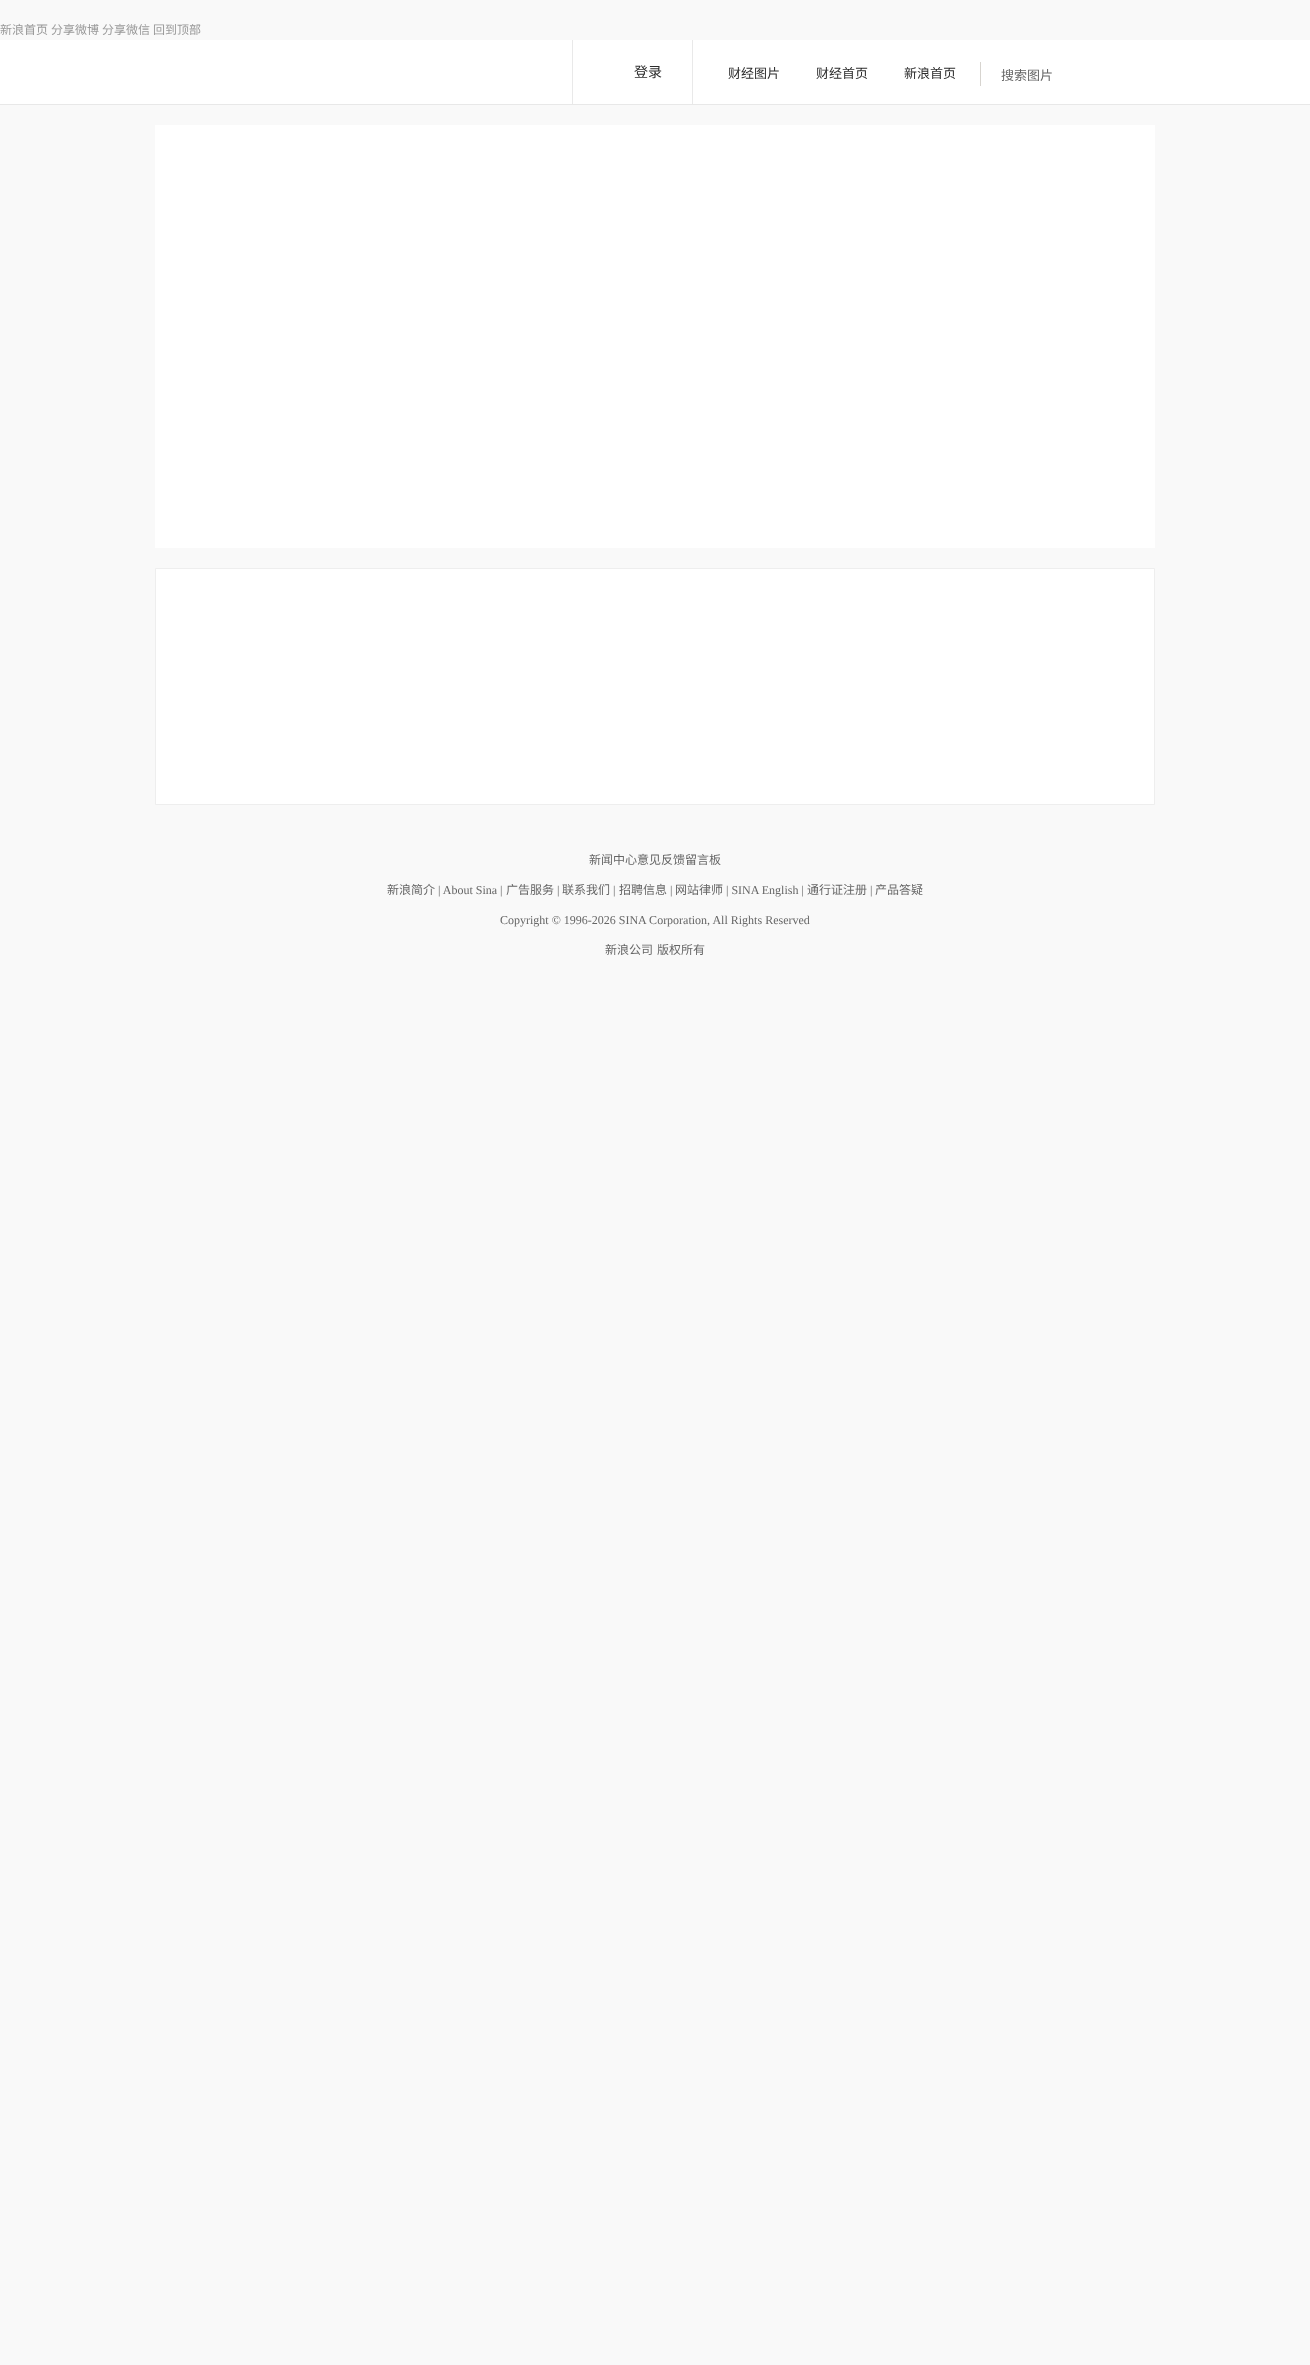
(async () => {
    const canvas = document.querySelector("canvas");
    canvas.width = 1310;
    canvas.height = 2365;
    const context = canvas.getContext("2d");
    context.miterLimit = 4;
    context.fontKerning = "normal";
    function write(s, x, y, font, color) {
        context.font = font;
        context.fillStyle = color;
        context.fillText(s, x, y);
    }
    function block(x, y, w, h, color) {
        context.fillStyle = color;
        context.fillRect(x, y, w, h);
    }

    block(0, 0, 1310, 2365, "rgb(249, 249, 249)");
    write("新浪首页", 0, 34, "12px Noto Sans CJK SC", "rgb(153, 153, 153)");
    write("分享微博", 51, 34, "12px Noto Sans CJK SC", "rgb(153, 153, 153)");
    write("分享微信", 102, 34, "12px Noto Sans CJK SC", "rgb(153, 153, 153)");
    write("回到顶部", 153, 34, "12px Noto Sans CJK SC", "rgb(153, 153, 153)");
    block(0, 40, 1310, 64, "rgb(255, 255, 255)");
    block(0, 104, 1310, 1, "rgb(232, 232, 232)");
    block(692, 40, 1, 64, "rgb(233, 233, 233)");
    block(572, 40, 1, 64, "rgb(233, 233, 233)");
    write("登录", 634, 77, "14px Noto Sans CJK SC", "rgb(44, 44, 44)");
    write("财经图片", 728, 78, "13px Noto Sans CJK SC", "rgb(44, 44, 44)");
    write("财经首页", 816, 78, "13px Noto Sans CJK SC", "rgb(44, 44, 44)");
    write("新浪首页", 904, 78, "13px Noto Sans CJK SC", "rgb(44, 44, 44)");
    block(980, 62, 1, 24, "rgb(215, 212, 207)");
    write("搜索图片", 1001, 80, "13px Noto Sans CJK SC", "rgb(102, 102, 102)");
    block(155, 125, 1000, 423, "rgb(255, 255, 255)");
    context.beginPath();
    context.rect(155.5, 568.5, 999, 236);
    context.fill();
    context.strokeStyle = "rgb(238, 238, 238)";
    context.stroke();
    write("新闻中心意见反馈留言板", 589, 864, "12px Noto Sans CJK SC", "rgb(102, 102, 102)");
    write("新浪简介", 387, 894, "12px Noto Sans CJK SC", "rgb(102, 102, 102)");
    write("| About Sina |", 438, 894, "12px Liberation Serif", "rgb(102, 102, 102)");
    write("广告服务", 506, 894, "12px Noto Sans CJK SC", "rgb(102, 102, 102)");
    write("|", 557, 894, "12px Liberation Serif", "rgb(102, 102, 102)");
    write("联系我们", 562, 894, "12px Noto Sans CJK SC", "rgb(102, 102, 102)");
    write("|", 613, 894, "12px Liberation Serif", "rgb(102, 102, 102)");
    write("招聘信息", 619, 894, "12px Noto Sans CJK SC", "rgb(102, 102, 102)");
    write("|", 670, 894, "12px Liberation Serif", "rgb(102, 102, 102)");
    write("网站律师", 675, 894, "12px Noto Sans CJK SC", "rgb(102, 102, 102)");
    write("| SINA English |", 726, 894, "12px Liberation Serif", "rgb(102, 102, 102)");
    write("通行证注册", 807, 894, "12px Noto Sans CJK SC", "rgb(102, 102, 102)");
    write("|", 870, 894, "12px Liberation Serif", "rgb(102, 102, 102)");
    write("产品答疑", 875, 894, "12px Noto Sans CJK SC", "rgb(102, 102, 102)");
    write("Copyright © 1996-2026 SINA Corporation, All Rights Reserved", 500, 924, "12px Liberation Serif", "rgb(102, 102, 102)");
    write("新浪公司", 605, 954, "12px Noto Sans CJK SC", "rgb(102, 102, 102)");
    write("版权所有", 657, 954, "12px Noto Sans CJK SC", "rgb(102, 102, 102)");
})();
